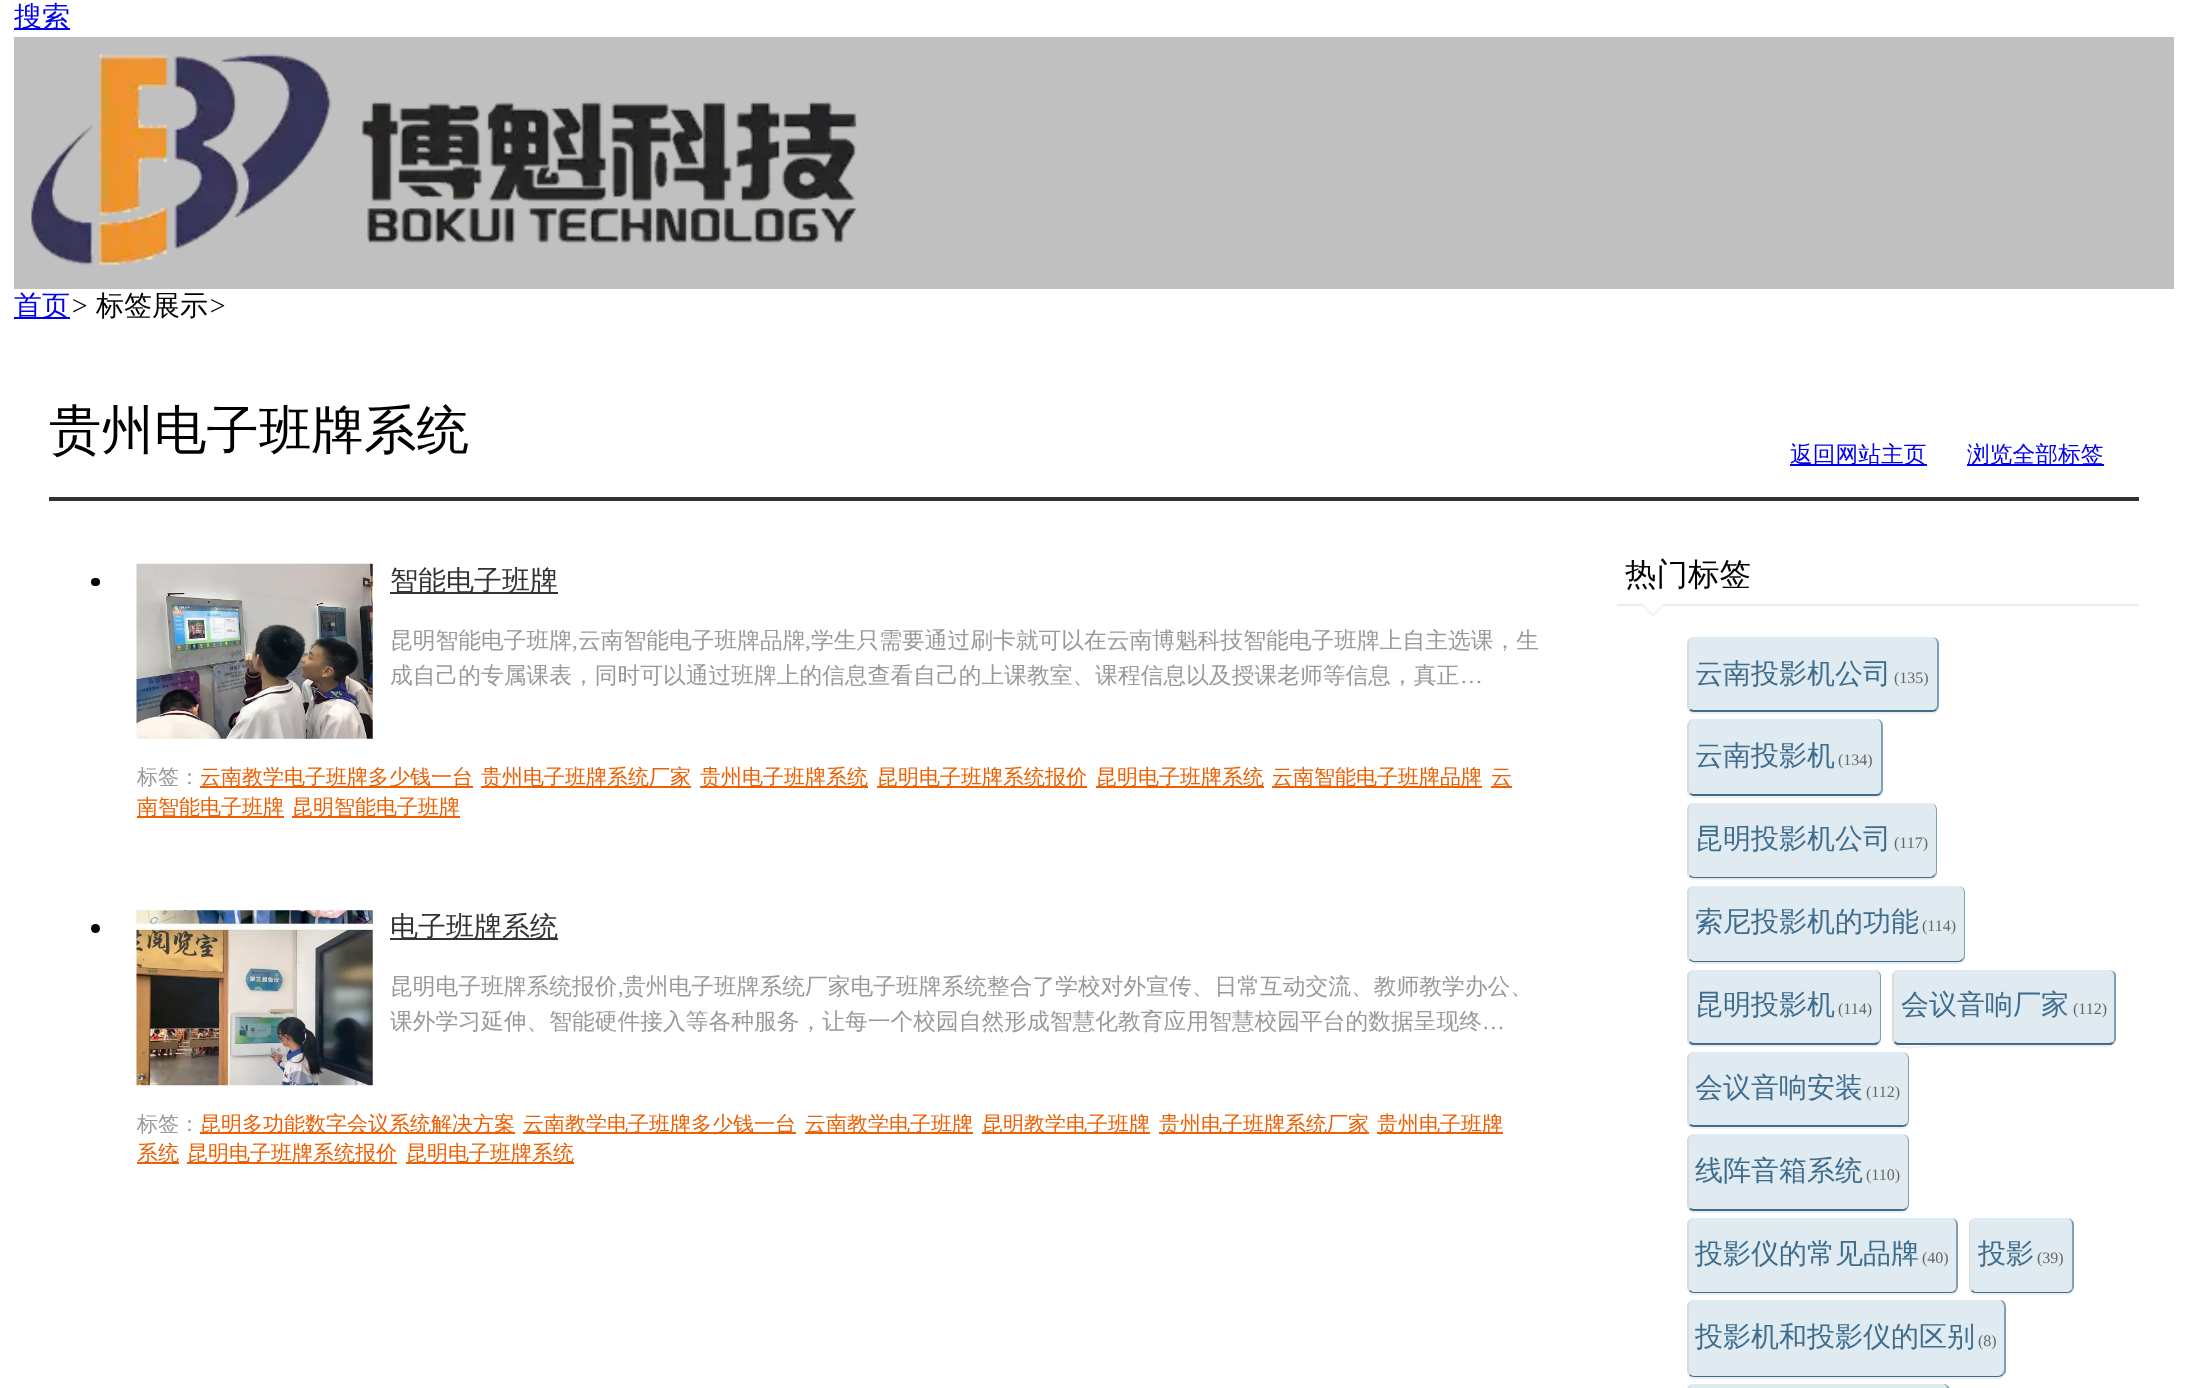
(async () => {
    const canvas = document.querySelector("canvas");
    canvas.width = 2187;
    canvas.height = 1388;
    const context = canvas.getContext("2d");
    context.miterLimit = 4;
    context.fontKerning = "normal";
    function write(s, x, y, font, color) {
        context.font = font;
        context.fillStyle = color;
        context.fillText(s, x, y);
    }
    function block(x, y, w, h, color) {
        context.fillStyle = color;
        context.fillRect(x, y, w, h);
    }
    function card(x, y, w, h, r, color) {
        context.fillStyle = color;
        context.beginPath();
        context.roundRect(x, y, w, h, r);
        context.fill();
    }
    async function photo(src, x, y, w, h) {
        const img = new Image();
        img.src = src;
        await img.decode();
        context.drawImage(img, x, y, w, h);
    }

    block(0, 0, 2187, 1388, "rgb(255, 255, 255)");
    block(14, 28, 56, 2, "rgb(0, 0, 238)");
    write("搜索", 14, 26, "500 28px WenQuanYi Zen Hei", "rgb(0, 0, 238)");
    block(14, 37, 2160, 252, "rgb(192, 192, 192)");
    await photo("media/1.png", 31, 54, 826, 211);
    block(14, 317, 56, 2, "rgb(0, 0, 238)");
    write("首页", 14, 315, "500 28px WenQuanYi Zen Hei", "rgb(0, 0, 238)");
    write(">", 70, 315, "italic 28px Liberation Serif", "rgb(0, 0, 0)");
    write("标签展示", 96, 315, "500 28px WenQuanYi Zen Hei", "rgb(0, 0, 0)");
    write(">", 208, 315, "italic 28px Liberation Serif", "rgb(0, 0, 0)");
    block(49, 497, 2090, 4, "rgb(51, 51, 51)");
    write("贵州电子班牌系统", 49, 448, "500 52.5px WenQuanYi Zen Hei", "rgb(0, 0, 0)");
    block(1790, 464, 137, 2, "rgb(0, 0, 238)");
    write("返回网站主页", 1790, 462, "500 22.75px WenQuanYi Zen Hei", "rgb(0, 0, 238)");
    block(1967, 464, 137, 2, "rgb(0, 0, 238)");
    write("浏览全部标签", 1967, 462, "500 22.75px WenQuanYi Zen Hei", "rgb(0, 0, 238)");
    card(91, 578, 9, 8, 4, "rgb(0, 0, 0)");
    await photo("media/2.png", 136, 563, 237, 176);
    block(390, 592, 168, 2, "rgb(51, 51, 51)");
    write("智能电子班牌", 390, 590, "500 28px WenQuanYi Zen Hei", "rgb(51, 51, 51)");
    write("昆明智能电子班牌", 390, 648, "500 22.75px WenQuanYi Zen Hei", "rgb(153, 153, 153)");
    write(",", 572, 648, "22.75px Liberation Serif", "rgb(153, 153, 153)");
    write("云南智能电子班牌品牌", 578, 648, "500 22.75px WenQuanYi Zen Hei", "rgb(153, 153, 153)");
    write(",", 805, 648, "22.75px Liberation Serif", "rgb(153, 153, 153)");
    write("学生只需要通过刷卡就可以在云南博魁科技智能电子班牌上自主选课，生", 811, 648, "500 22.75px WenQuanYi Zen Hei", "rgb(153, 153, 153)");
    write("成自己的专属课表，同时可以通过班牌上的信息查看自己的上课教室、课程信息以及授课老师等信息，真正", 390, 683, "500 22.75px WenQuanYi Zen Hei", "rgb(153, 153, 153)");
    write("…", 1460, 683, "22.75px Liberation Serif", "rgb(153, 153, 153)");
    write("标签：", 137, 784, "500 21px WenQuanYi Zen Hei", "rgb(153, 153, 153)");
    block(200, 786, 273, 2, "rgb(237, 95, 1)");
    write("云南教学电子班牌多少钱一台", 200, 784, "500 21px WenQuanYi Zen Hei", "rgb(237, 95, 1)");
    block(481, 786, 210, 2, "rgb(237, 95, 1)");
    write("贵州电子班牌系统厂家", 481, 784, "500 21px WenQuanYi Zen Hei", "rgb(237, 95, 1)");
    block(700, 786, 168, 2, "rgb(237, 95, 1)");
    write("贵州电子班牌系统", 700, 784, "500 21px WenQuanYi Zen Hei", "rgb(237, 95, 1)");
    block(877, 786, 210, 2, "rgb(237, 95, 1)");
    write("昆明电子班牌系统报价", 877, 784, "500 21px WenQuanYi Zen Hei", "rgb(237, 95, 1)");
    block(1096, 786, 168, 2, "rgb(237, 95, 1)");
    write("昆明电子班牌系统", 1096, 784, "500 21px WenQuanYi Zen Hei", "rgb(237, 95, 1)");
    block(1272, 786, 210, 2, "rgb(237, 95, 1)");
    write("云南智能电子班牌品牌", 1272, 784, "500 21px WenQuanYi Zen Hei", "rgb(237, 95, 1)");
    block(1491, 786, 21, 2, "rgb(237, 95, 1)");
    write("云", 1491, 784, "500 21px WenQuanYi Zen Hei", "rgb(237, 95, 1)");
    block(137, 816, 147, 2, "rgb(237, 95, 1)");
    write("南智能电子班牌", 137, 814, "500 21px WenQuanYi Zen Hei", "rgb(237, 95, 1)");
    block(292, 816, 168, 2, "rgb(237, 95, 1)");
    write("昆明智能电子班牌", 292, 814, "500 21px WenQuanYi Zen Hei", "rgb(237, 95, 1)");
    context.fillStyle = "rgb(0, 0, 0)";
    context.beginPath();
    context.arc(95.5, 928.5, 4.5, 0, Math.PI * 2);
    context.fill();
    await photo("media/3.png", 136, 910, 237, 176);
    block(390, 938, 168, 2, "rgb(51, 51, 51)");
    write("电子班牌系统", 390, 936, "500 28px WenQuanYi Zen Hei", "rgb(51, 51, 51)");
    write("昆明电子班牌系统报价", 390, 994, "500 22.75px WenQuanYi Zen Hei", "rgb(153, 153, 153)");
    write(",", 618, 994, "22.75px Liberation Serif", "rgb(153, 153, 153)");
    write("贵州电子班牌系统厂家电子班牌系统整合了学校对外宣传、日常互动交流、教师教学办公、", 623, 994, "500 22.75px WenQuanYi Zen Hei", "rgb(153, 153, 153)");
    write("课外学习延伸、智能硬件接入等各种服务，让每一个校园自然形成智慧化教育应用智慧校园平台的数据呈现终", 390, 1029, "500 22.75px WenQuanYi Zen Hei", "rgb(153, 153, 153)");
    write("…", 1482, 1029, "22.75px Liberation Serif", "rgb(153, 153, 153)");
    write("标签：", 137, 1131, "500 21px WenQuanYi Zen Hei", "rgb(153, 153, 153)");
    block(200, 1132, 315, 2, "rgb(237, 95, 1)");
    write("昆明多功能数字会议系统解决方案", 200, 1131, "500 21px WenQuanYi Zen Hei", "rgb(237, 95, 1)");
    block(523, 1132, 273, 2, "rgb(237, 95, 1)");
    write("云南教学电子班牌多少钱一台", 523, 1131, "500 21px WenQuanYi Zen Hei", "rgb(237, 95, 1)");
    block(805, 1132, 168, 2, "rgb(237, 95, 1)");
    write("云南教学电子班牌", 805, 1131, "500 21px WenQuanYi Zen Hei", "rgb(237, 95, 1)");
    block(982, 1132, 168, 2, "rgb(237, 95, 1)");
    write("昆明教学电子班牌", 982, 1131, "500 21px WenQuanYi Zen Hei", "rgb(237, 95, 1)");
    block(1159, 1132, 210, 2, "rgb(237, 95, 1)");
    write("贵州电子班牌系统厂家", 1159, 1131, "500 21px WenQuanYi Zen Hei", "rgb(237, 95, 1)");
    block(1377, 1132, 126, 2, "rgb(237, 95, 1)");
    write("贵州电子班牌", 1377, 1131, "500 21px WenQuanYi Zen Hei", "rgb(237, 95, 1)");
    block(137, 1162, 42, 2, "rgb(237, 95, 1)");
    write("系统", 137, 1160, "500 21px WenQuanYi Zen Hei", "rgb(237, 95, 1)");
    block(187, 1162, 210, 2, "rgb(237, 95, 1)");
    write("昆明电子班牌系统报价", 187, 1160, "500 21px WenQuanYi Zen Hei", "rgb(237, 95, 1)");
    block(406, 1162, 168, 2, "rgb(237, 95, 1)");
    write("昆明电子班牌系统", 406, 1160, "500 21px WenQuanYi Zen Hei", "rgb(237, 95, 1)");
    block(1617, 604, 522, 2, "rgb(235, 235, 235)");
    write("热门标签", 1625, 585, "500 31.5px WenQuanYi Zen Hei", "rgb(0, 0, 0)");
    await photo("media/4.png", 1642, 604, 22, 13);
    context.fillStyle = "rgb(238, 238, 238)";
    context.beginPath();
    context.moveTo(1687, 705);
    context.lineTo(1687, 707);
    context.bezierCurveTo(1687, 711, 1690, 714, 1694, 714);
    context.lineTo(1932, 714);
    context.bezierCurveTo(1936, 714, 1939, 711, 1939, 707);
    context.lineTo(1939, 705);
    context.bezierCurveTo(1939, 709, 1936, 712, 1932, 712);
    context.lineTo(1694, 712);
    context.bezierCurveTo(1690, 712, 1687, 709, 1687, 705);
    context.closePath();
    context.fill();
    card(1687, 637, 252, 75, 7, "rgb(224, 234, 241)");
    context.fillStyle = "rgb(127, 159, 182)";
    context.beginPath();
    context.moveTo(1937, 710);
    context.bezierCurveTo(1938, 709, 1939, 707, 1939, 705);
    context.lineTo(1939, 644);
    context.bezierCurveTo(1939, 640, 1936, 637, 1932, 637);
    context.bezierCurveTo(1935, 637, 1937, 640, 1937, 644);
    context.lineTo(1937, 705);
    context.bezierCurveTo(1937, 707, 1936, 708, 1935, 709);
    context.closePath();
    context.fill();
    context.fillStyle = "rgb(62, 109, 142)";
    context.beginPath();
    context.moveTo(1691, 709);
    context.lineTo(1693, 710);
    context.lineTo(1932, 710);
    context.bezierCurveTo(1933, 710, 1935, 710, 1935, 709);
    context.lineTo(1937, 710);
    context.bezierCurveTo(1936, 711, 1934, 712, 1932, 712);
    context.lineTo(1694, 712);
    context.bezierCurveTo(1692, 712, 1690, 711, 1689, 710);
    context.closePath();
    context.fill();
    context.fillStyle = "rgb(219, 219, 213)";
    context.beginPath();
    context.moveTo(1694, 637);
    context.bezierCurveTo(1690, 637, 1687, 640, 1687, 644);
    context.lineTo(1687, 705);
    context.bezierCurveTo(1687, 707, 1688, 709, 1689, 710);
    context.lineTo(1691, 709);
    context.bezierCurveTo(1690, 708, 1689, 707, 1689, 705);
    context.lineTo(1689, 644);
    context.bezierCurveTo(1689, 640, 1691, 637, 1694, 637);
    context.closePath();
    context.fill();
    write("云南投影机公司", 1695, 683, "500 28px WenQuanYi Zen Hei", "rgb(62, 109, 142)");
    write("(135)", 1894, 683, "16px Liberation Serif", "rgb(102, 102, 102)");
    context.fillStyle = "rgb(238, 238, 238)";
    context.beginPath();
    context.moveTo(1687, 789);
    context.lineTo(1687, 791);
    context.bezierCurveTo(1687, 795, 1690, 798, 1694, 798);
    context.lineTo(1876, 798);
    context.bezierCurveTo(1880, 798, 1883, 795, 1883, 791);
    context.lineTo(1883, 789);
    context.bezierCurveTo(1883, 793, 1880, 796, 1876, 796);
    context.lineTo(1694, 796);
    context.bezierCurveTo(1690, 796, 1687, 793, 1687, 789);
    context.closePath();
    context.fill();
    card(1687, 719, 196, 77, 7, "rgb(224, 234, 241)");
    context.fillStyle = "rgb(127, 159, 182)";
    context.beginPath();
    context.moveTo(1879, 793);
    context.bezierCurveTo(1880, 792, 1881, 791, 1881, 789);
    context.lineTo(1881, 726);
    context.bezierCurveTo(1881, 723, 1880, 720, 1877, 719);
    context.lineTo(1878, 719);
    context.bezierCurveTo(1881, 720, 1883, 723, 1883, 726);
    context.lineTo(1883, 789);
    context.bezierCurveTo(1883, 791, 1882, 793, 1881, 794);
    context.closePath();
    context.fill();
    context.fillStyle = "rgb(62, 109, 142)";
    context.beginPath();
    context.moveTo(1691, 793);
    context.bezierCurveTo(1691, 794, 1693, 794, 1694, 794);
    context.lineTo(1876, 794);
    context.bezierCurveTo(1877, 794, 1879, 794, 1879, 793);
    context.lineTo(1881, 794);
    context.bezierCurveTo(1880, 795, 1878, 796, 1877, 796);
    context.lineTo(1693, 796);
    context.lineTo(1689, 794);
    context.closePath();
    context.fill();
    context.fillStyle = "rgb(219, 219, 213)";
    context.beginPath();
    context.moveTo(1693, 719);
    context.bezierCurveTo(1690, 720, 1689, 723, 1689, 726);
    context.lineTo(1689, 789);
    context.bezierCurveTo(1689, 791, 1690, 792, 1691, 793);
    context.lineTo(1689, 794);
    context.bezierCurveTo(1688, 793, 1687, 791, 1687, 789);
    context.lineTo(1687, 726);
    context.bezierCurveTo(1687, 723, 1689, 720, 1692, 719);
    context.closePath();
    context.fill();
    write("云南投影机", 1695, 765, "500 28px WenQuanYi Zen Hei", "rgb(62, 109, 142)");
    write("(134)", 1838, 765, "16px Liberation Serif", "rgb(102, 102, 102)");
    context.fillStyle = "rgb(238, 238, 238)";
    context.beginPath();
    context.moveTo(1687, 872);
    context.lineTo(1687, 873);
    context.bezierCurveTo(1687, 877, 1690, 880, 1694, 880);
    context.lineTo(1930, 880);
    context.bezierCurveTo(1934, 880, 1937, 877, 1937, 873);
    context.bezierCurveTo(1936, 876, 1933, 878, 1930, 878);
    context.lineTo(1694, 878);
    context.bezierCurveTo(1690, 878, 1687, 875, 1687, 872);
    context.closePath();
    context.fill();
    card(1687, 803, 250, 76, 7, "rgb(224, 234, 241)");
    context.fillStyle = "rgb(127, 159, 182)";
    context.beginPath();
    context.moveTo(1934, 875);
    context.bezierCurveTo(1935, 874, 1936, 873, 1936, 872);
    context.lineTo(1936, 810);
    context.bezierCurveTo(1936, 807, 1934, 804, 1932, 803);
    context.bezierCurveTo(1935, 804, 1937, 807, 1937, 810);
    context.lineTo(1937, 872);
    context.bezierCurveTo(1937, 874, 1936, 875, 1935, 876);
    context.closePath();
    context.fill();
    context.fillStyle = "rgb(62, 109, 142)";
    context.beginPath();
    context.moveTo(1690, 875);
    context.bezierCurveTo(1691, 876, 1693, 877, 1694, 877);
    context.lineTo(1931, 877);
    context.lineTo(1934, 875);
    context.lineTo(1935, 876);
    context.bezierCurveTo(1934, 877, 1932, 878, 1930, 878);
    context.lineTo(1694, 878);
    context.bezierCurveTo(1692, 878, 1690, 877, 1689, 876);
    context.closePath();
    context.fill();
    context.fillStyle = "rgb(219, 219, 213)";
    context.beginPath();
    context.moveTo(1693, 803);
    context.bezierCurveTo(1690, 804, 1689, 807, 1689, 810);
    context.lineTo(1689, 872);
    context.bezierCurveTo(1689, 873, 1689, 874, 1690, 875);
    context.lineTo(1689, 876);
    context.bezierCurveTo(1688, 875, 1687, 874, 1687, 872);
    context.lineTo(1687, 810);
    context.bezierCurveTo(1687, 807, 1689, 804, 1692, 803);
    context.closePath();
    context.fill();
    write("昆明投影机公司", 1695, 848, "500 28px WenQuanYi Zen Hei", "rgb(62, 109, 142)");
    write("(117)", 1894, 848, "16px Liberation Serif", "rgb(102, 102, 102)");
    context.fillStyle = "rgb(238, 238, 238)";
    context.beginPath();
    context.moveTo(1687, 956);
    context.lineTo(1687, 957);
    context.bezierCurveTo(1687, 961, 1690, 964, 1694, 964);
    context.lineTo(1958, 964);
    context.bezierCurveTo(1962, 964, 1965, 961, 1965, 957);
    context.bezierCurveTo(1964, 960, 1961, 962, 1958, 962);
    context.lineTo(1694, 962);
    context.bezierCurveTo(1690, 962, 1687, 959, 1687, 956);
    context.closePath();
    context.fill();
    card(1687, 886, 278, 77, 7, "rgb(224, 234, 241)");
    context.fillStyle = "rgb(127, 159, 182)";
    context.beginPath();
    context.moveTo(1963, 960);
    context.bezierCurveTo(1964, 959, 1965, 958, 1965, 956);
    context.lineTo(1965, 892);
    context.bezierCurveTo(1965, 889, 1962, 886, 1958, 886);
    context.bezierCurveTo(1961, 886, 1964, 889, 1964, 892);
    context.lineTo(1964, 956);
    context.bezierCurveTo(1964, 957, 1963, 958, 1962, 959);
    context.closePath();
    context.fill();
    context.fillStyle = "rgb(62, 109, 142)";
    context.beginPath();
    context.moveTo(1690, 959);
    context.lineTo(1693, 961);
    context.lineTo(1958, 961);
    context.bezierCurveTo(1960, 961, 1961, 960, 1962, 959);
    context.lineTo(1963, 960);
    context.bezierCurveTo(1962, 961, 1960, 962, 1958, 962);
    context.lineTo(1693, 962);
    context.lineTo(1689, 960);
    context.closePath();
    context.fill();
    context.fillStyle = "rgb(219, 219, 213)";
    context.beginPath();
    context.moveTo(1694, 886);
    context.bezierCurveTo(1691, 886, 1689, 889, 1689, 892);
    context.lineTo(1689, 956);
    context.bezierCurveTo(1689, 957, 1689, 958, 1690, 959);
    context.lineTo(1689, 960);
    context.bezierCurveTo(1688, 959, 1687, 958, 1687, 956);
    context.lineTo(1687, 892);
    context.bezierCurveTo(1687, 889, 1690, 886, 1694, 886);
    context.closePath();
    context.fill();
    write("索尼投影机的功能", 1695, 931, "500 28px WenQuanYi Zen Hei", "rgb(62, 109, 142)");
    write("(114)", 1922, 931, "16px Liberation Serif", "rgb(102, 102, 102)");
    context.fillStyle = "rgb(238, 238, 238)";
    context.beginPath();
    context.moveTo(1687, 1038);
    context.lineTo(1687, 1040);
    context.bezierCurveTo(1687, 1044, 1690, 1047, 1694, 1047);
    context.lineTo(1874, 1047);
    context.bezierCurveTo(1878, 1047, 1881, 1044, 1881, 1040);
    context.bezierCurveTo(1880, 1043, 1877, 1045, 1874, 1045);
    context.lineTo(1694, 1045);
    context.bezierCurveTo(1690, 1045, 1687, 1042, 1687, 1038);
    context.closePath();
    context.fill();
    card(1687, 970, 194, 75, 7, "rgb(224, 234, 241)");
    context.fillStyle = "rgb(127, 159, 182)";
    context.beginPath();
    context.moveTo(1879, 1043);
    context.bezierCurveTo(1880, 1042, 1881, 1040, 1881, 1038);
    context.lineTo(1881, 976);
    context.bezierCurveTo(1881, 973, 1878, 970, 1874, 970);
    context.bezierCurveTo(1877, 970, 1880, 973, 1880, 976);
    context.lineTo(1880, 1038);
    context.bezierCurveTo(1880, 1040, 1879, 1041, 1878, 1042);
    context.closePath();
    context.fill();
    context.fillStyle = "rgb(62, 109, 142)";
    context.beginPath();
    context.moveTo(1690, 1041);
    context.bezierCurveTo(1691, 1042, 1692, 1043, 1694, 1043);
    context.lineTo(1874, 1043);
    context.bezierCurveTo(1876, 1043, 1877, 1042, 1878, 1042);
    context.lineTo(1879, 1043);
    context.lineTo(1876, 1045);
    context.lineTo(1692, 1045);
    context.lineTo(1689, 1043);
    context.closePath();
    context.fill();
    context.fillStyle = "rgb(219, 219, 213)";
    context.beginPath();
    context.moveTo(1694, 970);
    context.bezierCurveTo(1691, 970, 1689, 973, 1689, 976);
    context.lineTo(1689, 1038);
    context.bezierCurveTo(1689, 1039, 1689, 1041, 1690, 1041);
    context.lineTo(1689, 1043);
    context.bezierCurveTo(1688, 1042, 1687, 1040, 1687, 1038);
    context.lineTo(1687, 976);
    context.bezierCurveTo(1687, 973, 1690, 970, 1694, 970);
    context.closePath();
    context.fill();
    write("昆明投影机", 1695, 1014, "500 28px WenQuanYi Zen Hei", "rgb(62, 109, 142)");
    write("(114)", 1838, 1014, "16px Liberation Serif", "rgb(102, 102, 102)");
    context.fillStyle = "rgb(238, 238, 238)";
    context.beginPath();
    context.moveTo(1892, 1040);
    context.bezierCurveTo(1892, 1053, 1919, 1047, 1934, 1047);
    context.lineTo(2109, 1047);
    context.bezierCurveTo(2118, 1047, 2116, 1035, 2116, 1030);
    context.lineTo(2116, 976);
    context.lineTo(2116, 1028);
    context.bezierCurveTo(2116, 1033, 2118, 1045, 2109, 1045);
    context.lineTo(1934, 1045);
    context.bezierCurveTo(1928, 1045, 1895, 1051, 1892, 1040);
    context.closePath();
    context.fill();
    card(1892, 970, 224, 75, 7, "rgb(224, 234, 241)");
    context.fillStyle = "rgb(127, 159, 182)";
    context.beginPath();
    context.moveTo(2116, 1040);
    context.lineTo(2114, 1043);
    context.lineTo(2113, 1042);
    context.bezierCurveTo(2114, 1041, 2114, 1040, 2114, 1038);
    context.lineTo(2114, 976);
    context.bezierCurveTo(2114, 973, 2112, 970, 2109, 970);
    context.bezierCurveTo(2112, 970, 2115, 972, 2116, 974);
    context.closePath();
    context.fill();
    context.fillStyle = "rgb(62, 109, 142)";
    context.beginPath();
    context.moveTo(1895, 1041);
    context.bezierCurveTo(1896, 1042, 1897, 1043, 1899, 1043);
    context.lineTo(2109, 1043);
    context.bezierCurveTo(2110, 1043, 2112, 1042, 2113, 1042);
    context.lineTo(2114, 1043);
    context.lineTo(2111, 1045);
    context.lineTo(1897, 1045);
    context.lineTo(1894, 1043);
    context.closePath();
    context.fill();
    context.fillStyle = "rgb(219, 219, 213)";
    context.beginPath();
    context.moveTo(1899, 970);
    context.bezierCurveTo(1896, 970, 1894, 973, 1894, 976);
    context.lineTo(1894, 1038);
    context.bezierCurveTo(1894, 1039, 1894, 1041, 1895, 1041);
    context.lineTo(1894, 1043);
    context.bezierCurveTo(1893, 1042, 1892, 1040, 1892, 1038);
    context.lineTo(1892, 976);
    context.bezierCurveTo(1892, 973, 1895, 970, 1899, 970);
    context.closePath();
    context.fill();
    write("会议音响厂家", 1901, 1014, "500 28px WenQuanYi Zen Hei", "rgb(62, 109, 142)");
    write("(112)", 2073, 1014, "16px Liberation Serif", "rgb(102, 102, 102)");
    context.fillStyle = "rgb(238, 238, 238)";
    context.beginPath();
    context.moveTo(1687, 1120);
    context.lineTo(1687, 1122);
    context.bezierCurveTo(1687, 1126, 1690, 1129, 1694, 1129);
    context.lineTo(1902, 1129);
    context.bezierCurveTo(1906, 1129, 1909, 1126, 1909, 1122);
    context.bezierCurveTo(1908, 1125, 1905, 1127, 1902, 1127);
    context.lineTo(1694, 1127);
    context.bezierCurveTo(1690, 1127, 1687, 1124, 1687, 1120);
    context.closePath();
    context.fill();
    card(1687, 1052, 222, 75, 7, "rgb(224, 234, 241)");
    context.fillStyle = "rgb(127, 159, 182)";
    context.beginPath();
    context.moveTo(1907, 1125);
    context.bezierCurveTo(1908, 1124, 1909, 1122, 1909, 1120);
    context.lineTo(1909, 1059);
    context.bezierCurveTo(1909, 1055, 1906, 1052, 1902, 1052);
    context.bezierCurveTo(1905, 1052, 1908, 1055, 1908, 1059);
    context.lineTo(1908, 1120);
    context.bezierCurveTo(1908, 1122, 1907, 1123, 1906, 1124);
    context.closePath();
    context.fill();
    context.fillStyle = "rgb(62, 109, 142)";
    context.beginPath();
    context.moveTo(1690, 1124);
    context.bezierCurveTo(1691, 1124, 1692, 1125, 1694, 1125);
    context.lineTo(1902, 1125);
    context.bezierCurveTo(1903, 1125, 1905, 1125, 1906, 1124);
    context.lineTo(1907, 1125);
    context.bezierCurveTo(1906, 1126, 1904, 1127, 1902, 1127);
    context.lineTo(1694, 1127);
    context.bezierCurveTo(1692, 1127, 1690, 1126, 1689, 1125);
    context.closePath();
    context.fill();
    context.fillStyle = "rgb(219, 219, 213)";
    context.beginPath();
    context.moveTo(1694, 1052);
    context.bezierCurveTo(1691, 1052, 1689, 1055, 1689, 1059);
    context.lineTo(1689, 1120);
    context.bezierCurveTo(1689, 1122, 1690, 1123, 1690, 1124);
    context.lineTo(1689, 1125);
    context.bezierCurveTo(1688, 1124, 1687, 1122, 1687, 1120);
    context.lineTo(1687, 1059);
    context.bezierCurveTo(1687, 1055, 1690, 1052, 1694, 1052);
    context.closePath();
    context.fill();
    write("会议音响安装", 1695, 1097, "500 28px WenQuanYi Zen Hei", "rgb(62, 109, 142)");
    write("(112)", 1866, 1097, "16px Liberation Serif", "rgb(102, 102, 102)");
    context.fillStyle = "rgb(238, 238, 238)";
    context.beginPath();
    context.moveTo(1687, 1204);
    context.lineTo(1687, 1206);
    context.bezierCurveTo(1687, 1210, 1690, 1213, 1694, 1213);
    context.lineTo(1902, 1213);
    context.bezierCurveTo(1906, 1213, 1909, 1210, 1909, 1206);
    context.bezierCurveTo(1908, 1209, 1905, 1211, 1902, 1211);
    context.lineTo(1694, 1211);
    context.bezierCurveTo(1690, 1211, 1687, 1208, 1687, 1204);
    context.closePath();
    context.fill();
    card(1687, 1134, 222, 77, 7, "rgb(224, 234, 241)");
    context.fillStyle = "rgb(127, 159, 182)";
    context.beginPath();
    context.moveTo(1909, 1141);
    context.bezierCurveTo(1909, 1137, 1906, 1134, 1902, 1134);
    context.bezierCurveTo(1905, 1134, 1908, 1137, 1908, 1141);
    context.lineTo(1908, 1204);
    context.bezierCurveTo(1908, 1206, 1907, 1207, 1906, 1208);
    context.lineTo(1907, 1209);
    context.bezierCurveTo(1908, 1208, 1909, 1206, 1909, 1204);
    context.closePath();
    context.fill();
    context.fillStyle = "rgb(62, 109, 142)";
    context.beginPath();
    context.moveTo(1690, 1208);
    context.bezierCurveTo(1691, 1208, 1692, 1209, 1694, 1209);
    context.lineTo(1902, 1209);
    context.bezierCurveTo(1903, 1209, 1905, 1209, 1906, 1208);
    context.lineTo(1907, 1209);
    context.bezierCurveTo(1906, 1210, 1904, 1211, 1902, 1211);
    context.lineTo(1694, 1211);
    context.bezierCurveTo(1692, 1211, 1690, 1210, 1689, 1209);
    context.closePath();
    context.fill();
    context.fillStyle = "rgb(219, 219, 213)";
    context.beginPath();
    context.moveTo(1694, 1134);
    context.bezierCurveTo(1690, 1134, 1687, 1137, 1687, 1141);
    context.lineTo(1687, 1204);
    context.bezierCurveTo(1687, 1206, 1688, 1208, 1689, 1209);
    context.lineTo(1690, 1208);
    context.bezierCurveTo(1690, 1207, 1689, 1206, 1689, 1204);
    context.lineTo(1689, 1141);
    context.bezierCurveTo(1689, 1137, 1691, 1134, 1694, 1134);
    context.closePath();
    context.fill();
    write("线阵音箱系统", 1695, 1180, "500 28px WenQuanYi Zen Hei", "rgb(62, 109, 142)");
    write("(110)", 1866, 1180, "16px Liberation Serif", "rgb(102, 102, 102)");
    context.fillStyle = "rgb(238, 238, 238)";
    context.beginPath();
    context.moveTo(1687, 1286);
    context.bezierCurveTo(1687, 1291, 1689, 1295, 1694, 1295);
    context.lineTo(1951, 1295);
    context.bezierCurveTo(1955, 1295, 1958, 1292, 1958, 1288);
    context.bezierCurveTo(1957, 1291, 1954, 1293, 1951, 1293);
    context.lineTo(1694, 1293);
    context.bezierCurveTo(1690, 1293, 1687, 1290, 1687, 1286);
    context.closePath();
    context.fill();
    card(1687, 1218, 271, 75, 7, "rgb(224, 234, 241)");
    context.fillStyle = "rgb(127, 159, 182)";
    context.beginPath();
    context.moveTo(1958, 1286);
    context.lineTo(1958, 1225);
    context.bezierCurveTo(1958, 1221, 1955, 1218, 1951, 1218);
    context.bezierCurveTo(1954, 1218, 1956, 1221, 1956, 1225);
    context.lineTo(1956, 1286);
    context.bezierCurveTo(1956, 1287, 1956, 1289, 1955, 1290);
    context.lineTo(1956, 1291);
    context.bezierCurveTo(1957, 1290, 1958, 1288, 1958, 1286);
    context.closePath();
    context.fill();
    context.fillStyle = "rgb(62, 109, 142)";
    context.beginPath();
    context.moveTo(1690, 1290);
    context.lineTo(1693, 1292);
    context.lineTo(1951, 1292);
    context.bezierCurveTo(1953, 1292, 1954, 1291, 1955, 1290);
    context.lineTo(1956, 1291);
    context.bezierCurveTo(1955, 1292, 1953, 1293, 1951, 1293);
    context.lineTo(1694, 1293);
    context.bezierCurveTo(1692, 1293, 1690, 1292, 1689, 1291);
    context.closePath();
    context.fill();
    context.fillStyle = "rgb(219, 219, 213)";
    context.beginPath();
    context.moveTo(1694, 1218);
    context.bezierCurveTo(1690, 1218, 1687, 1221, 1687, 1225);
    context.lineTo(1687, 1286);
    context.bezierCurveTo(1687, 1288, 1688, 1290, 1689, 1291);
    context.lineTo(1690, 1290);
    context.bezierCurveTo(1689, 1289, 1689, 1287, 1689, 1286);
    context.lineTo(1689, 1225);
    context.bezierCurveTo(1689, 1221, 1691, 1218, 1694, 1218);
    context.closePath();
    context.fill();
    write("投影仪的常见品牌", 1695, 1263, "500 28px WenQuanYi Zen Hei", "rgb(62, 109, 142)");
    write("(40)", 1922, 1263, "16px Liberation Serif", "rgb(102, 102, 102)");
    context.fillStyle = "rgb(238, 238, 238)";
    context.beginPath();
    context.moveTo(1969, 1288);
    context.bezierCurveTo(1969, 1292, 1972, 1295, 1976, 1295);
    context.lineTo(2067, 1295);
    context.bezierCurveTo(2071, 1295, 2074, 1292, 2074, 1288);
    context.lineTo(2074, 1225);
    context.lineTo(2074, 1286);
    context.bezierCurveTo(2074, 1290, 2071, 1293, 2067, 1293);
    context.lineTo(1976, 1293);
    context.bezierCurveTo(1973, 1293, 1970, 1291, 1969, 1288);
    context.closePath();
    context.fill();
    card(1969, 1218, 105, 75, 7, "rgb(224, 234, 241)");
    context.fillStyle = "rgb(127, 159, 182)";
    context.beginPath();
    context.moveTo(2074, 1223);
    context.bezierCurveTo(2073, 1220, 2070, 1218, 2067, 1218);
    context.bezierCurveTo(2070, 1218, 2072, 1221, 2072, 1225);
    context.lineTo(2072, 1286);
    context.bezierCurveTo(2072, 1288, 2072, 1289, 2071, 1290);
    context.lineTo(2072, 1291);
    context.lineTo(2074, 1288);
    context.closePath();
    context.fill();
    context.fillStyle = "rgb(62, 109, 142)";
    context.beginPath();
    context.moveTo(1972, 1290);
    context.lineTo(1975, 1292);
    context.lineTo(2068, 1292);
    context.bezierCurveTo(2069, 1292, 2070, 1291, 2071, 1290);
    context.lineTo(2072, 1291);
    context.bezierCurveTo(2071, 1292, 2069, 1293, 2067, 1293);
    context.lineTo(1976, 1293);
    context.bezierCurveTo(1974, 1293, 1972, 1292, 1971, 1291);
    context.closePath();
    context.fill();
    context.fillStyle = "rgb(219, 219, 213)";
    context.beginPath();
    context.moveTo(1976, 1218);
    context.bezierCurveTo(1973, 1218, 1970, 1221, 1970, 1225);
    context.lineTo(1970, 1286);
    context.bezierCurveTo(1970, 1288, 1971, 1289, 1972, 1290);
    context.lineTo(1971, 1291);
    context.bezierCurveTo(1970, 1290, 1969, 1288, 1969, 1286);
    context.lineTo(1969, 1225);
    context.bezierCurveTo(1969, 1221, 1972, 1218, 1976, 1218);
    context.closePath();
    context.fill();
    write("投影", 1978, 1263, "500 28px WenQuanYi Zen Hei", "rgb(62, 109, 142)");
    write("(39)", 2037, 1263, "16px Liberation Serif", "rgb(102, 102, 102)");
    context.fillStyle = "rgb(238, 238, 238)";
    context.beginPath();
    context.moveTo(1687, 1370);
    context.lineTo(1687, 1372);
    context.bezierCurveTo(1687, 1376, 1690, 1379, 1694, 1379);
    context.lineTo(1999, 1379);
    context.bezierCurveTo(2003, 1379, 2006, 1376, 2006, 1372);
    context.lineTo(2006, 1309);
    context.lineTo(2005, 1306);
    context.lineTo(2006, 1370);
    context.bezierCurveTo(2006, 1374, 2002, 1377, 1998, 1377);
    context.lineTo(1694, 1377);
    context.bezierCurveTo(1690, 1377, 1687, 1374, 1687, 1370);
    context.closePath();
    context.fill();
    card(1687, 1300, 319, 77, 7, "rgb(224, 234, 241)");
    context.fillStyle = "rgb(127, 159, 182)";
    context.beginPath();
    context.moveTo(2002, 1374);
    context.bezierCurveTo(2003, 1373, 2004, 1371, 2004, 1370);
    context.lineTo(2004, 1307);
    context.bezierCurveTo(2004, 1304, 2002, 1301, 2000, 1300);
    context.bezierCurveTo(2008, 1300, 2006, 1312, 2006, 1316);
    context.lineTo(2006, 1372);
    context.lineTo(2003, 1375);
    context.closePath();
    context.fill();
    context.fillStyle = "rgb(62, 109, 142)";
    context.beginPath();
    context.moveTo(1690, 1374);
    context.bezierCurveTo(1691, 1375, 1692, 1376, 1694, 1376);
    context.lineTo(1998, 1376);
    context.bezierCurveTo(2000, 1376, 2001, 1375, 2002, 1374);
    context.lineTo(2003, 1375);
    context.bezierCurveTo(2002, 1376, 2000, 1377, 1998, 1377);
    context.lineTo(1694, 1377);
    context.bezierCurveTo(1692, 1377, 1690, 1376, 1689, 1375);
    context.closePath();
    context.fill();
    context.fillStyle = "rgb(219, 219, 213)";
    context.beginPath();
    context.moveTo(1693, 1300);
    context.bezierCurveTo(1690, 1301, 1689, 1304, 1689, 1307);
    context.lineTo(1689, 1370);
    context.bezierCurveTo(1689, 1371, 1689, 1373, 1690, 1374);
    context.lineTo(1689, 1375);
    context.bezierCurveTo(1688, 1374, 1687, 1372, 1687, 1370);
    context.lineTo(1687, 1307);
    context.bezierCurveTo(1687, 1304, 1689, 1301, 1692, 1300);
    context.closePath();
    context.fill();
    write("投影机和投影仪的区别", 1695, 1346, "500 28px WenQuanYi Zen Hei", "rgb(62, 109, 142)");
    write("(8)", 1978, 1346, "16px Liberation Serif", "rgb(102, 102, 102)");
    card(1687, 1384, 263, 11, 7, "rgb(224, 234, 241)");
    context.fillStyle = "rgb(127, 159, 182)";
    context.beginPath();
    context.moveTo(1946, 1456);
    context.bezierCurveTo(1947, 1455, 1948, 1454, 1948, 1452);
    context.lineTo(1948, 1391);
    context.bezierCurveTo(1948, 1388, 1946, 1385, 1944, 1384);
    context.bezierCurveTo(1945, 1384, 1949, 1386, 1950, 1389);
    context.lineTo(1950, 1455);
    context.lineTo(1948, 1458);
    context.closePath();
    context.fill();
    context.fillStyle = "rgb(219, 219, 213)";
    context.beginPath();
    context.moveTo(1693, 1384);
    context.bezierCurveTo(1690, 1385, 1689, 1388, 1689, 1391);
    context.lineTo(1689, 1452);
    context.bezierCurveTo(1689, 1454, 1690, 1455, 1690, 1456);
    context.lineTo(1689, 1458);
    context.bezierCurveTo(1688, 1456, 1687, 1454, 1687, 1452);
    context.lineTo(1687, 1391);
    context.bezierCurveTo(1687, 1388, 1689, 1385, 1692, 1384);
    context.closePath();
    context.fill();
})();
